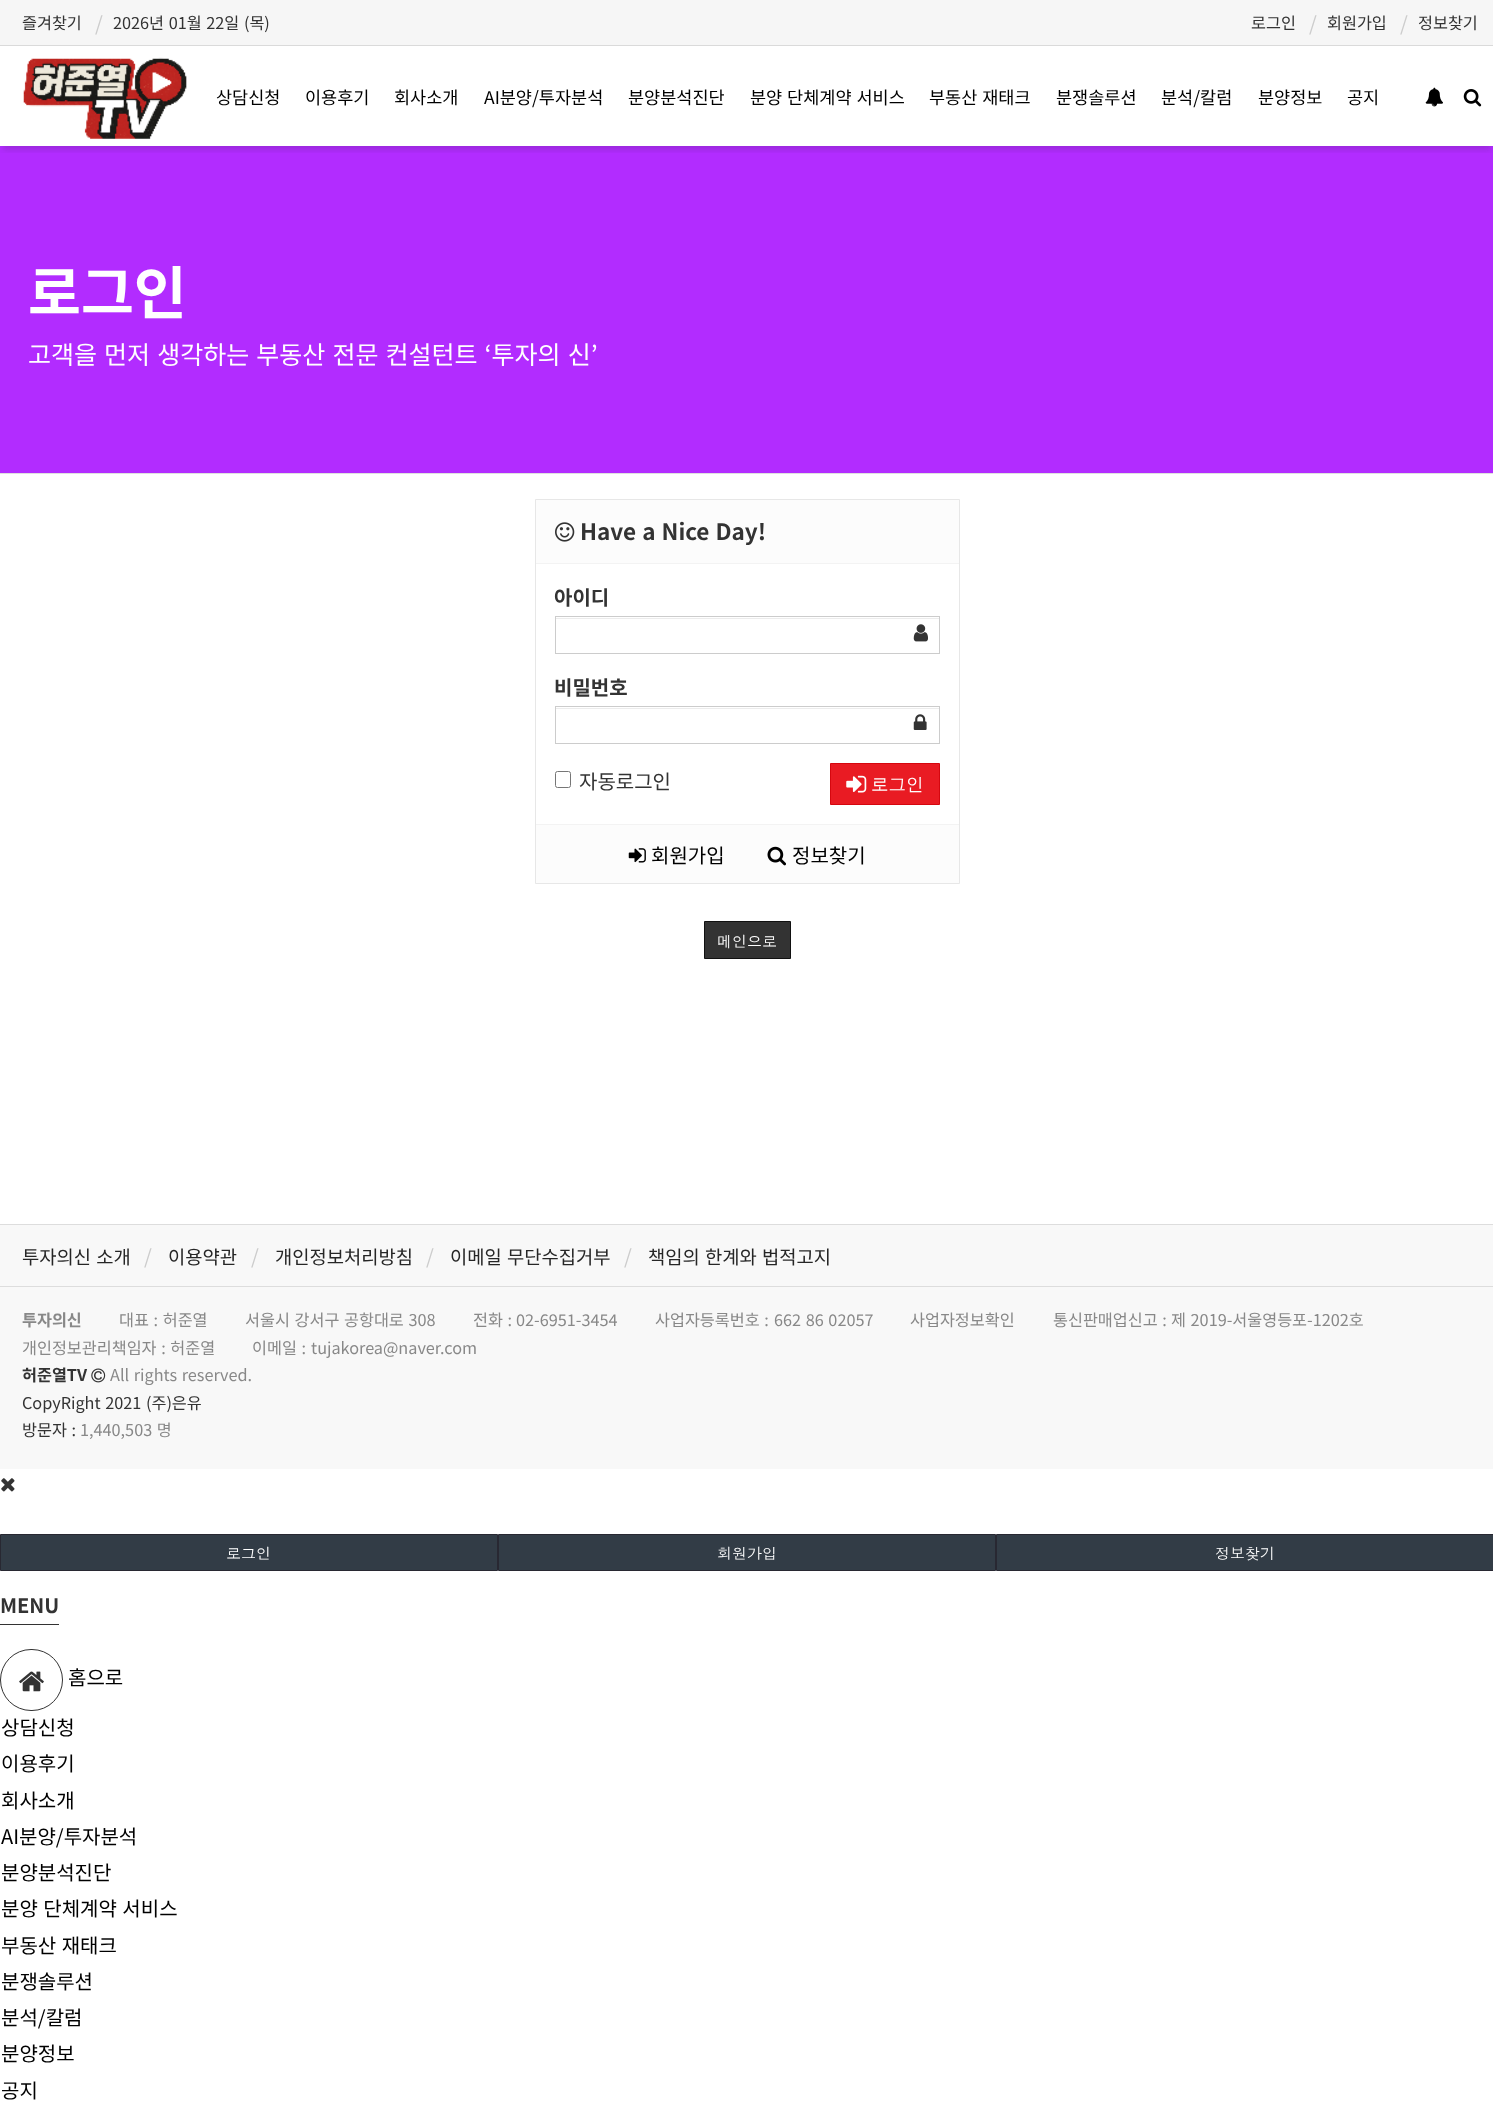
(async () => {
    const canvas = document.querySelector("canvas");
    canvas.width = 1493;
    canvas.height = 2125;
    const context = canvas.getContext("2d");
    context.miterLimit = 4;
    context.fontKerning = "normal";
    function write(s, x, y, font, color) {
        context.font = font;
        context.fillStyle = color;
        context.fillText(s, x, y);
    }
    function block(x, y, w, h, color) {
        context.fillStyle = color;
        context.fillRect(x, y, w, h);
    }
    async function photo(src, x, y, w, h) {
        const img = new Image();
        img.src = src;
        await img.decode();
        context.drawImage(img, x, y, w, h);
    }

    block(0, 0, 1493, 2125, "rgb(255, 255, 255)");
    block(0, 0, 1493, 45, "rgb(246, 246, 246)");
    block(0, 45, 1493, 1, "rgb(218, 218, 218)");
    write("즐겨찾기", 22, 29, "16.25px Noto Sans KR", "rgb(51, 51, 51)");
    write("/", 95, 31, "20px Noto Sans KR", "rgb(204, 204, 204)");
    context.wordSpacing = "1px";
    write("2026년 01월 22일 (목)", 113, 29, "16.25px Noto Sans KR", "rgb(51, 51, 51)");
    context.wordSpacing = "0px";
    write("로그인", 1251, 29, "16.25px Noto Sans KR", "rgb(51, 51, 51)");
    write("/", 1309, 31, "20px Noto Sans KR", "rgb(204, 204, 204)");
    write("회원가입", 1327, 29, "16.25px Noto Sans KR", "rgb(51, 51, 51)");
    write("/", 1400, 31, "20px Noto Sans KR", "rgb(204, 204, 204)");
    write("정보찾기", 1418, 29, "16.25px Noto Sans KR", "rgb(51, 51, 51)");
    block(0, 146, 1493, 327, "rgb(178, 44, 255)");
    context.save();
    context.beginPath();
    context.rect(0, 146, 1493, 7);
    context.clip();
    context.fillStyle = "rgba(25, 25, 25, 0.15)";
    context.filter = "blur(3px)";
    context.beginPath();
    context.rect(3, 55, 1488, 95);
    context.fill();
    context.filter = "none";
    context.restore();
    await photo("media/1.png", 23, 57, 164, 82);
    write("상담신청", 216, 104, "17.5px Noto Sans KR", "rgb(0, 0, 0)");
    write("이용후기", 305, 104, "17.5px Noto Sans KR", "rgb(0, 0, 0)");
    write("회사소개", 394, 104, "17.5px Noto Sans KR", "rgb(0, 0, 0)");
    write("AI분양/투자분석", 484, 104, "17.5px Noto Sans KR", "rgb(0, 0, 0)");
    write("분양분석진단", 628, 104, "17.5px Noto Sans KR", "rgb(0, 0, 0)");
    context.wordSpacing = "1px";
    write("분양 단체계약 서비스", 750, 104, "17.5px Noto Sans KR", "rgb(0, 0, 0)");
    write("부동산 재태크", 929, 104, "17.5px Noto Sans KR", "rgb(0, 0, 0)");
    context.wordSpacing = "0px";
    write("분쟁솔루션", 1056, 104, "17.5px Noto Sans KR", "rgb(0, 0, 0)");
    write("분석/칼럼", 1161, 104, "17.5px Noto Sans KR", "rgb(0, 0, 0)");
    write("분양정보", 1258, 104, "17.5px Noto Sans KR", "rgb(0, 0, 0)");
    write("공지", 1347, 104, "17.5px Noto Sans KR", "rgb(0, 0, 0)");
    await photo("media/2.png", 1425, 87, 18, 20);
    await photo("media/3.png", 1463, 89, 19, 18);
    block(0, 473, 1493, 1, "rgb(223, 223, 223)");
    write("로그인", 28, 314, "bold 57.5px Noto Sans KR", "rgb(255, 255, 255)");
    context.wordSpacing = "1.5px";
    write("고객을 먼저 생각하는 부동산 전문 컨설턴트 ‘투자의 신’", 28, 364, "25px Noto Sans KR", "rgb(255, 255, 255)");
    context.fillStyle = "rgb(252, 252, 252)";
    context.beginPath();
    context.rect(535.5, 499.5, 424, 384);
    context.fill();
    context.strokeStyle = "rgb(231, 231, 231)";
    context.stroke();
    block(536, 563, 423, 1, "rgb(243, 243, 243)");
    await photo("media/4.png", 555, 522, 20, 20);
    context.wordSpacing = "1px";
    write("Have a Nice Day!", 580, 540, "bold 22.5px Noto Sans KR", "rgb(51, 51, 51)");
    block(536, 564, 423, 260, "rgb(255, 255, 255)");
    context.wordSpacing = "0px";
    write("아이디", 554, 605, "bold 20px Noto Sans KR", "rgb(51, 51, 51)");
    block(556, 618, 383, 1, "rgb(236, 236, 236)");
    context.strokeStyle = "rgb(204, 204, 204)";
    context.strokeRect(555.5, 616.5, 384, 37);
    await photo("media/5.png", 913, 624, 15, 18);
    write("비밀번호", 554, 695, "bold 20px Noto Sans KR", "rgb(51, 51, 51)");
    block(556, 708, 383, 1, "rgb(236, 236, 236)");
    context.strokeRect(555.5, 706.5, 384, 37);
    await photo("media/6.png", 913, 714, 14, 16);
    context.beginPath();
    context.roundRect(555.5, 771.5, 15, 16, 2);
    context.strokeStyle = "rgb(118, 118, 118)";
    context.stroke();
    write("자동로그인", 579, 789, "20px Noto Sans KR", "rgb(51, 51, 51)");
    context.fillStyle = "rgb(233, 27, 35)";
    context.beginPath();
    context.rect(830.5, 763.5, 109, 41);
    context.fill();
    context.strokeStyle = "rgb(213, 7, 15)";
    context.stroke();
    await photo("media/7.png", 846, 775, 21, 18);
    write("로그인", 871, 790, "500 17.5px WenQuanYi Zen Hei", "rgb(255, 255, 255)");
    block(536, 824, 423, 1, "rgb(243, 243, 243)");
    await photo("media/8.png", 628, 848, 18, 15);
    write("회원가입", 651, 863, "20px Noto Sans KR", "rgb(0, 0, 0)");
    await photo("media/9.png", 767, 846, 19, 20);
    write("정보찾기", 792, 863, "20px Noto Sans KR", "rgb(0, 0, 0)");
    context.fillStyle = "rgb(51, 51, 51)";
    context.beginPath();
    context.rect(704.5, 921.5, 86, 37);
    context.fill();
    context.strokeStyle = "rgb(17, 17, 17)";
    context.stroke();
    write("메인으로", 717, 947, "15px Dotum", "rgb(255, 255, 255)");
    block(0, 1225, 1493, 244, "rgb(248, 248, 248)");
    block(0, 1224, 1493, 1, "rgb(221, 221, 221)");
    block(0, 1286, 1493, 1, "rgb(221, 221, 221)");
    context.wordSpacing = "1px";
    write("투자의신 소개", 22, 1264, "18.75px Noto Sans KR", "rgb(38, 38, 38)");
    context.wordSpacing = "0px";
    write("/", 144, 1264, "20px Noto Sans KR", "rgb(204, 204, 204)");
    write("이용약관", 168, 1264, "18.75px Noto Sans KR", "rgb(38, 38, 38)");
    write("/", 251, 1264, "20px Noto Sans KR", "rgb(204, 204, 204)");
    write("개인정보처리방침", 275, 1264, "18.75px Noto Sans KR", "rgb(38, 38, 38)");
    write("/", 426, 1264, "20px Noto Sans KR", "rgb(204, 204, 204)");
    context.wordSpacing = "1px";
    write("이메일 무단수집거부", 450, 1264, "18.75px Noto Sans KR", "rgb(38, 38, 38)");
    context.wordSpacing = "0px";
    write("/", 624, 1264, "20px Noto Sans KR", "rgb(204, 204, 204)");
    context.wordSpacing = "1px";
    write("책임의 한계와 법적고지", 648, 1264, "18.75px Noto Sans KR", "rgb(38, 38, 38)");
    context.wordSpacing = "0px";
    write("투자의신", 22, 1326, "bold 16.25px Noto Sans KR", "rgb(136, 136, 136)");
    context.wordSpacing = "1px";
    write("대표 : 허준열", 119, 1326, "16.25px Noto Sans KR", "rgb(136, 136, 136)");
    write("서울시 강서구 공항대로 308", 245, 1326, "16.25px Noto Sans KR", "rgb(136, 136, 136)");
    write("전화 :", 473, 1326, "16.25px Noto Sans KR", "rgb(136, 136, 136)");
    context.wordSpacing = "0px";
    write("02-6951-3454", 516, 1326, "16.25px Noto Sans KR", "rgb(136, 136, 136)");
    context.wordSpacing = "1px";
    write("사업자등록번호 :", 655, 1326, "16.25px Noto Sans KR", "rgb(136, 136, 136)");
    write("662 86 02057", 774, 1326, "16.25px Noto Sans KR", "rgb(136, 136, 136)");
    context.wordSpacing = "0px";
    write("사업자정보확인", 910, 1326, "16.25px Noto Sans KR", "rgb(136, 136, 136)");
    context.wordSpacing = "1px";
    write("통신판매업신고 :", 1053, 1326, "16.25px Noto Sans KR", "rgb(136, 136, 136)");
    write("제 2019-서울영등포-1202호", 1171, 1326, "16.25px Noto Sans KR", "rgb(136, 136, 136)");
    write("개인정보관리책임자 : 허준열", 22, 1354, "16.25px Noto Sans KR", "rgb(136, 136, 136)");
    write("이메일 :", 252, 1354, "16.25px Noto Sans KR", "rgb(136, 136, 136)");
    context.wordSpacing = "0px";
    write("tujakorea@naver.com", 311, 1354, "16.25px Noto Sans KR", "rgb(136, 136, 136)");
    write("허준열TV", 22, 1381, "bold 16.25px Noto Sans KR", "rgb(51, 51, 51)");
    await photo("media/10.png", 91, 1368, 15, 15);
    context.wordSpacing = "1px";
    write("All rights reserved.", 110, 1381, "16.25px Noto Sans KR", "rgb(136, 136, 136)");
    write("CopyRight 2021 (주)은유", 22, 1409, "16.25px Noto Sans KR", "rgb(51, 51, 51)");
    write("방문자 :", 22, 1436, "16.25px Noto Sans KR", "rgb(51, 51, 51)");
    write("1,440,503 명", 80, 1436, "16.25px Noto Sans KR", "rgb(136, 136, 136)");
    await photo("media/11.png", 1, 1478, 14, 14);
    context.fillStyle = "rgb(50, 60, 70)";
    context.beginPath();
    context.rect(0.5, 1534.5, 497, 36);
    context.fill();
    context.strokeStyle = "rgb(40, 40, 50)";
    context.stroke();
    context.wordSpacing = "0px";
    write("로그인", 226, 1559, "15px Dotum", "rgb(255, 255, 255)");
    context.fillStyle = "rgb(50, 60, 70)";
    context.beginPath();
    context.rect(498.5, 1534.5, 497, 36);
    context.fill();
    context.stroke();
    write("회원가입", 717, 1559, "15px Dotum", "rgb(255, 255, 255)");
    context.fillStyle = "rgb(50, 60, 70)";
    context.beginPath();
    context.rect(996.5, 1534.5, 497, 36);
    context.fill();
    context.stroke();
    write("정보찾기", 1215, 1559, "15px Dotum", "rgb(255, 255, 255)");
    block(0, 1624, 59, 1, "rgb(51, 51, 51)");
    write("MENU", 0, 1613, "bold 20px Noto Sans KR", "rgb(51, 51, 51)");
    context.beginPath();
    context.roundRect(0.5, 1649.5, 62, 61, 30.5);
    context.strokeStyle = "rgb(51, 51, 51)";
    context.stroke();
    await photo("media/12.png", 19, 1671, 25, 21);
    write("홈으로", 68, 1685, "20px Noto Sans KR", "rgb(0, 0, 0)");
    write("상담신청", 1, 1735, "20px Noto Sans KR", "rgb(0, 0, 0)");
    write("이용후기", 1, 1771, "20px Noto Sans KR", "rgb(0, 0, 0)");
    write("회사소개", 1, 1808, "20px Noto Sans KR", "rgb(0, 0, 0)");
    write("AI분양/투자분석", 1, 1844, "20px Noto Sans KR", "rgb(0, 0, 0)");
    write("분양분석진단", 1, 1880, "20px Noto Sans KR", "rgb(0, 0, 0)");
    context.wordSpacing = "1px";
    write("분양 단체계약 서비스", 1, 1916, "20px Noto Sans KR", "rgb(0, 0, 0)");
    write("부동산 재태크", 1, 1953, "20px Noto Sans KR", "rgb(0, 0, 0)");
    context.wordSpacing = "0px";
    write("분쟁솔루션", 1, 1989, "20px Noto Sans KR", "rgb(0, 0, 0)");
    write("분석/칼럼", 1, 2025, "20px Noto Sans KR", "rgb(0, 0, 0)");
    write("분양정보", 1, 2061, "20px Noto Sans KR", "rgb(0, 0, 0)");
    write("공지", 1, 2098, "20px Noto Sans KR", "rgb(0, 0, 0)");
})();
